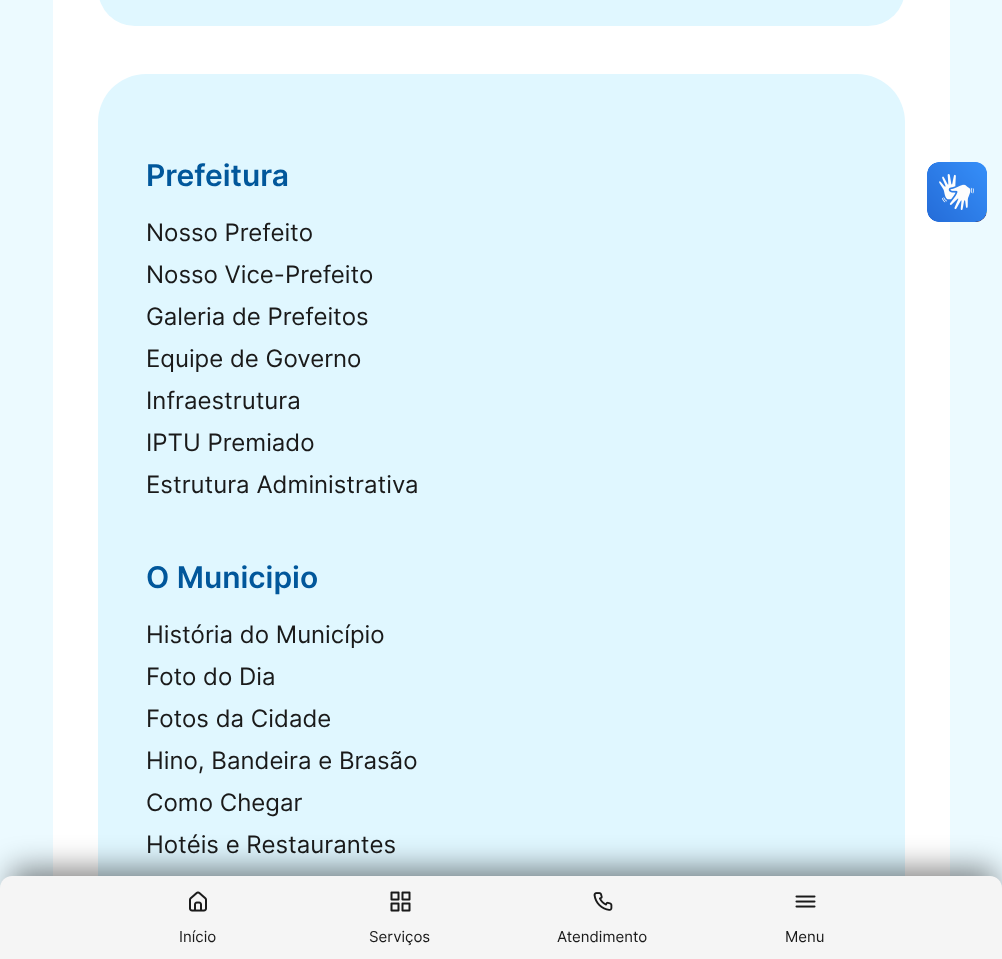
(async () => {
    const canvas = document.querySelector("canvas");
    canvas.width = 1002;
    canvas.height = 959;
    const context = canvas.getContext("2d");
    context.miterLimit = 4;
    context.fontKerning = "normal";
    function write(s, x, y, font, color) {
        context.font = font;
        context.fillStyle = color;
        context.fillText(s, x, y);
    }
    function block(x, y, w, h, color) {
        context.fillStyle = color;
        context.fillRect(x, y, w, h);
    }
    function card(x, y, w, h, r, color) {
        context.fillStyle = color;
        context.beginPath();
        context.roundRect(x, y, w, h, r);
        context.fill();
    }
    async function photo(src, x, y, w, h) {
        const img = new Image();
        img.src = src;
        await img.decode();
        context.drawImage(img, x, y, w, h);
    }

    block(0, 0, 1002, 959, "rgb(236, 250, 255)");
    block(53, 0, 897, 876, "rgb(255, 255, 255)");
    card(98, -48, 807, 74, 48, "rgb(224, 247, 255)");
    card(98, 74, 807, 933, 48, "rgb(224, 247, 255)");
    write("Prefeitura", 146, 186, "600 30px Inter", "rgb(1, 87, 155)");
    write("Nosso Prefeito", 146, 241, "24px Inter", "rgb(26, 26, 26)");
    write("Nosso Vice-Prefeito", 146, 283, "24px Inter", "rgb(26, 26, 26)");
    write("Galeria de Prefeitos", 146, 325, "24px Inter", "rgb(26, 26, 26)");
    write("Equipe de Governo", 146, 367, "24px Inter", "rgb(26, 26, 26)");
    write("Infraestrutura", 146, 409, "24px Inter", "rgb(26, 26, 26)");
    write("IPTU Premiado", 146, 451, "24px Inter", "rgb(26, 26, 26)");
    write("Estrutura Administrativa", 146, 493, "24px Inter", "rgb(26, 26, 26)");
    write("O Municipio", 146, 588, "600 30px Inter", "rgb(1, 87, 155)");
    write("História do Município", 146, 643, "24px Inter", "rgb(26, 26, 26)");
    write("Foto do Dia", 146, 685, "24px Inter", "rgb(26, 26, 26)");
    write("Fotos da Cidade", 146, 727, "24px Inter", "rgb(26, 26, 26)");
    write("Hino, Bandeira e Brasão", 146, 769, "24px Inter", "rgb(26, 26, 26)");
    write("Como Chegar", 146, 811, "24px Inter", "rgb(26, 26, 26)");
    write("Hotéis e Restaurantes", 146, 853, "24px Inter", "rgb(26, 26, 26)");
    await photo("media/1.png", 927, 162, 60, 60);
    await photo("media/2.png", 927, 162, 60, 60);
    context.fillStyle = "rgba(0, 0, 0, 0.49)";
    context.filter = "blur(15px)";
    context.beginPath();
    context.roundRect(11, 869, 984, 66, 3);
    context.fill();
    context.filter = "none";
    context.fillStyle = "rgb(245, 245, 245)";
    context.beginPath();
    context.moveTo(12, 876);
    context.lineTo(990, 876);
    context.bezierCurveTo(996.5, 876, 1002, 881.5, 1002, 888);
    context.lineTo(1002, 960);
    context.lineTo(0, 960);
    context.lineTo(0, 888);
    context.bezierCurveTo(0, 881.5, 5.5, 876, 12, 876);
    context.closePath();
    context.fill();
    await photo("media/3.png", 189, 891, 18, 21);
    write("Início", 179, 942, "15px Inter", "rgb(26, 26, 26)");
    await photo("media/4.png", 390, 891, 21, 21);
    write("Serviços", 369, 942, "15px Inter", "rgb(26, 26, 26)");
    await photo("media/5.png", 593, 892, 20, 19);
    write("Atendimento", 557, 942, "15px Inter", "rgb(26, 26, 26)");
    await photo("media/6.png", 795, 895, 21, 13);
    write("Menu", 785, 942, "15px Inter", "rgb(26, 26, 26)");
})();
